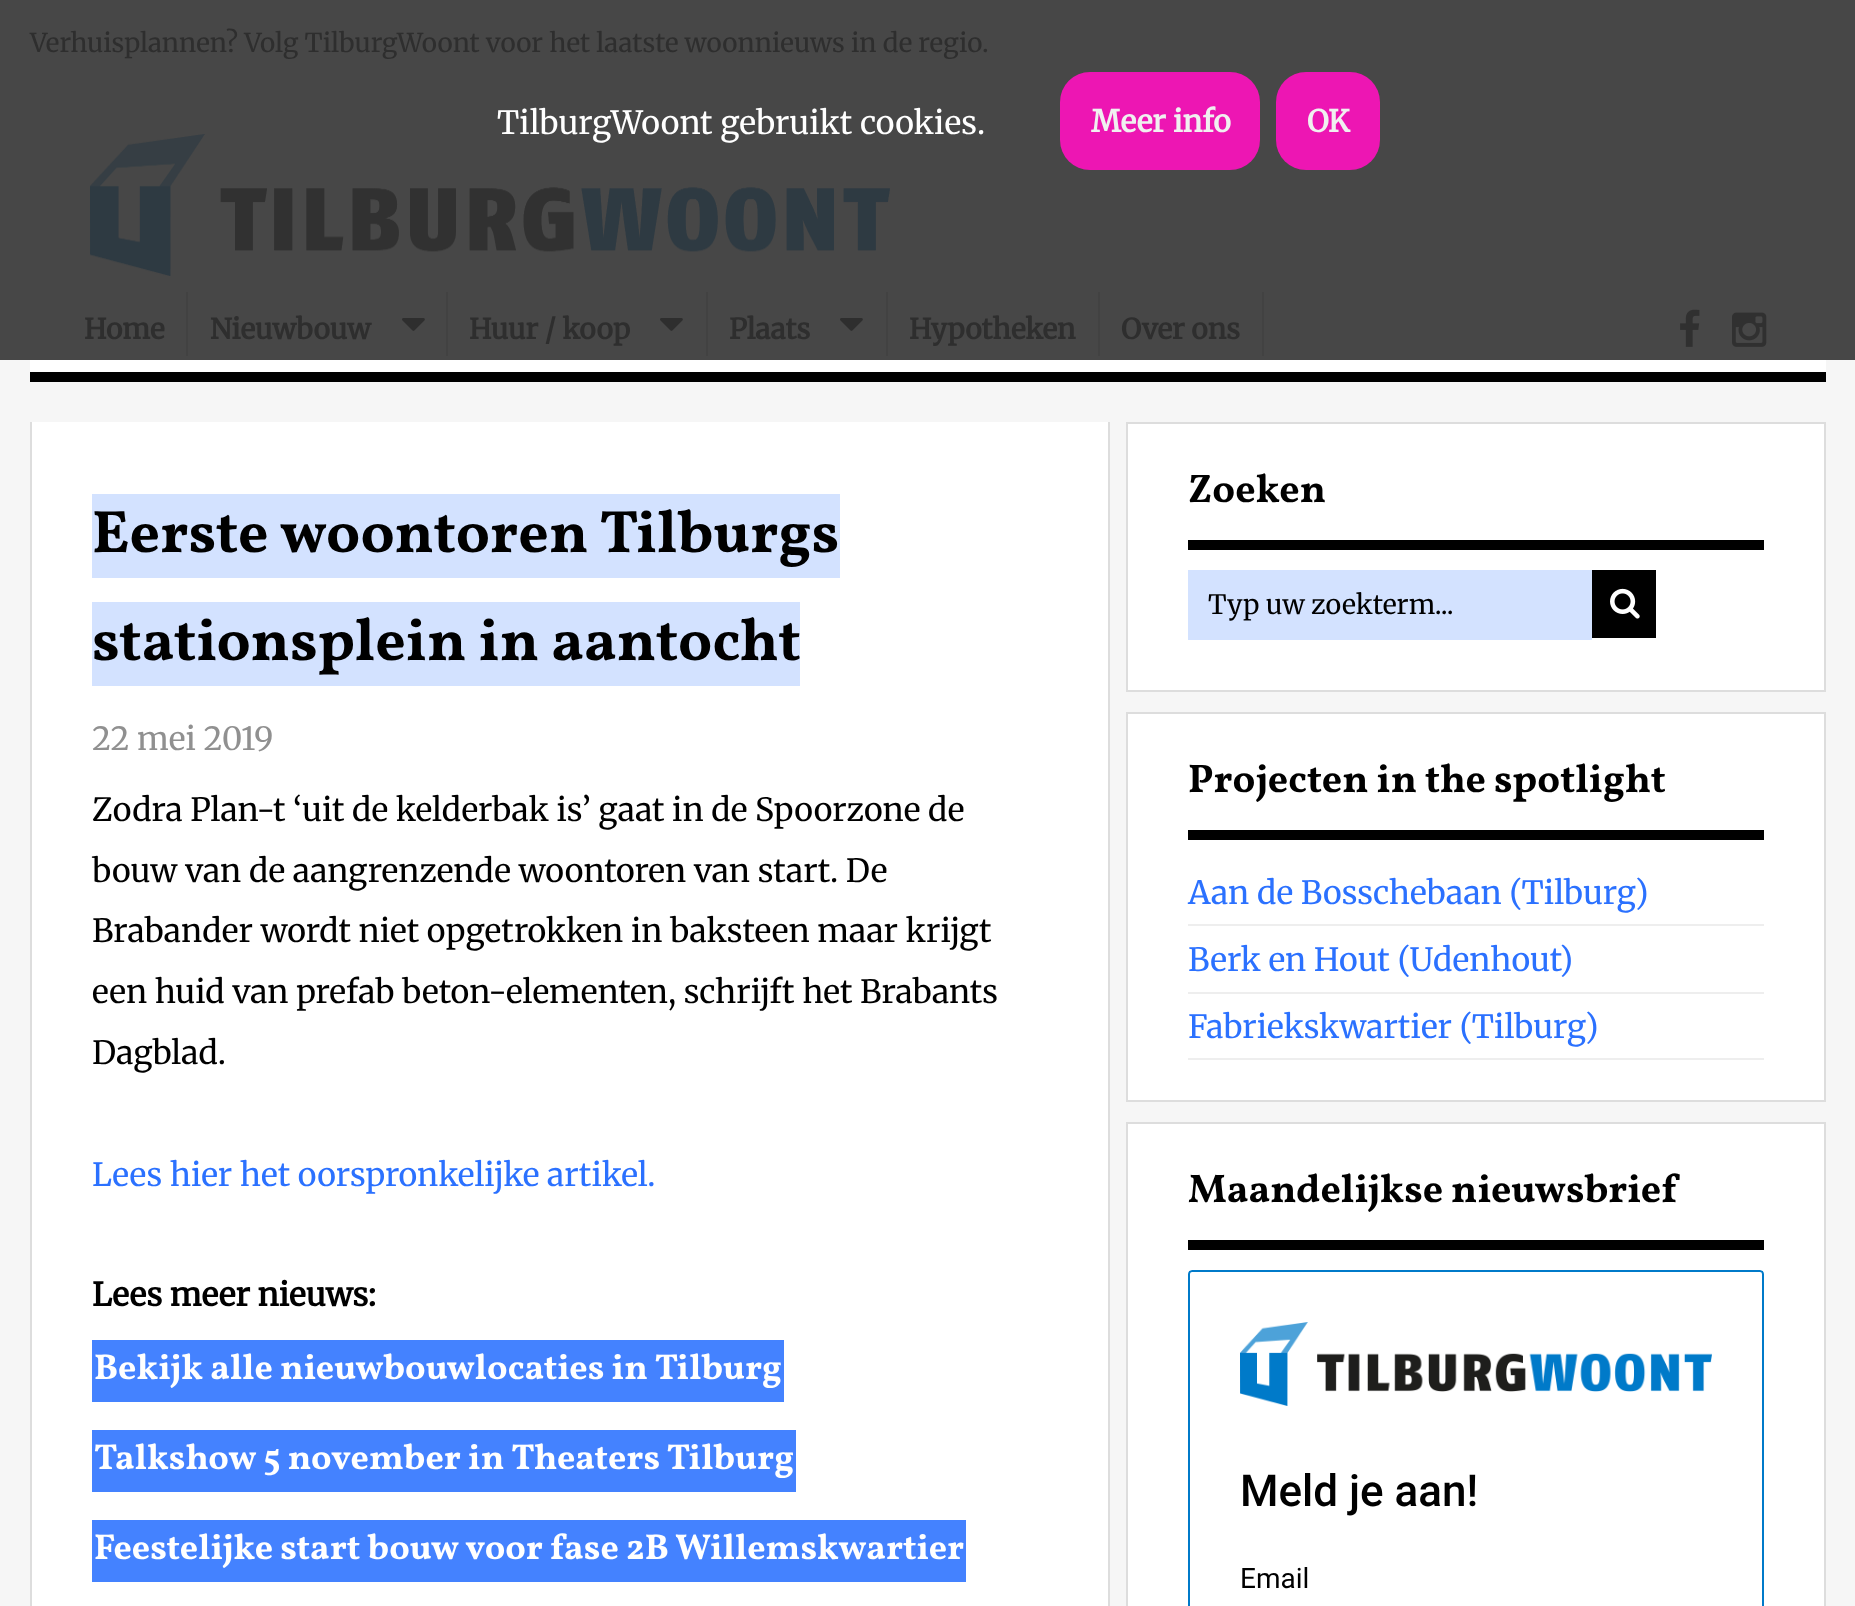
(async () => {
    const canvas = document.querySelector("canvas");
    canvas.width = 1855;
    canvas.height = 1606;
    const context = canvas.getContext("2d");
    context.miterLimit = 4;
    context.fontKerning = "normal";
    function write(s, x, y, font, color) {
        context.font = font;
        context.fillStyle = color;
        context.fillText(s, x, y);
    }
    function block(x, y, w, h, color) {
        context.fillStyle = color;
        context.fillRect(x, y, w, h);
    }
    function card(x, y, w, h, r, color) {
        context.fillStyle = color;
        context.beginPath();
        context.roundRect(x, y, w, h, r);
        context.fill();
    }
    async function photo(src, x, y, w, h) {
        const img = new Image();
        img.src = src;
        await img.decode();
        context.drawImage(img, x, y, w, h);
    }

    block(0, 0, 1855, 1606, "rgb(246, 246, 246)");
    block(0, 0, 1855, 360, "rgb(71, 71, 71)");
    write("Verhuisplannen? Volg TilburgWoont voor het laatste woonnieuws in de regio.", 30, 52, "300 26px Merriweather", "rgb(46, 46, 46)");
    await photo("media/1.png", 90, 134, 800, 142);
    block(30, 360, 1796, 12, "rgb(255, 255, 255)");
    block(30, 372, 1796, 10, "rgb(0, 0, 0)");
    block(186, 292, 2, 64, "rgb(66, 66, 66)");
    write("Home", 84, 339, "bold 28px Merriweather", "rgb(46, 46, 46)");
    block(446, 292, 2, 64, "rgb(66, 66, 66)");
    write("Nieuwbouw", 210, 339, "bold 28px Merriweather", "rgb(46, 46, 46)");
    await photo("media/2.png", 402, 318, 23, 13);
    block(706, 292, 2, 64, "rgb(66, 66, 66)");
    write("Huur / koop", 469, 339, "bold 28px Merriweather", "rgb(46, 46, 46)");
    await photo("media/2.png", 660, 318, 23, 13);
    block(886, 292, 2, 64, "rgb(66, 66, 66)");
    write("Plaats", 729, 339, "bold 28px Merriweather", "rgb(46, 46, 46)");
    await photo("media/2.png", 840, 318, 23, 13);
    block(1098, 292, 2, 64, "rgb(66, 66, 66)");
    write("Hypotheken", 909, 339, "bold 28px Merriweather", "rgb(46, 46, 46)");
    block(1262, 292, 2, 64, "rgb(66, 66, 66)");
    write("Over ons", 1121, 339, "bold 28px Merriweather", "rgb(46, 46, 46)");
    await photo("media/3.png", 1680, 309, 20, 38);
    await photo("media/4.png", 1732, 312, 35, 35);
    block(32, 422, 1076, 1184, "rgb(255, 255, 255)");
    block(1108, 422, 2, 1184, "rgb(221, 221, 221)");
    block(30, 422, 2, 1184, "rgb(221, 221, 221)");
    block(92, 494, 748, 84, "rgb(211, 226, 255)");
    write("Eerste woontoren Tilburgs", 92, 552, "bold 60px Vollkorn", "rgb(0, 0, 0)");
    block(92, 602, 708, 84, "rgb(211, 226, 255)");
    write("stationsplein in aantocht", 92, 660, "bold 60px Vollkorn", "rgb(0, 0, 0)");
    write("22 mei 2019", 92, 750, "300 32px Merriweather", "rgb(144, 144, 144)");
    write("Zodra Plan-t ‘uit de kelderbak is’ gaat in de Spoorzone de", 92, 821, "300 32px Merriweather", "rgb(0, 0, 0)");
    write("bouw van de aangrenzende woontoren van start. De", 92, 882, "300 32px Merriweather", "rgb(0, 0, 0)");
    write("Brabander wordt niet opgetrokken in baksteen maar krijgt", 92, 942, "300 32px Merriweather", "rgb(0, 0, 0)");
    write("een huid van prefab beton-elementen, schrijft het Brabants", 92, 1003, "300 32px Merriweather", "rgb(0, 0, 0)");
    write("Dagblad.", 92, 1064, "300 32px Merriweather", "rgb(0, 0, 0)");
    write("Lees hier het oorspronkelijke artikel.", 92, 1186, "300 32px Merriweather", "rgb(43, 113, 255)");
    write("Lees meer nieuws:", 92, 1306, "bold 32px Merriweather", "rgb(0, 0, 0)");
    block(92, 1340, 692, 62, "rgb(68, 130, 255)");
    write("Bekijk alle nieuwbouwlocaties in Tilburg", 94, 1379, "bold 36px Vollkorn", "rgb(255, 255, 255)");
    block(92, 1430, 704, 62, "rgb(68, 130, 255)");
    write("Talkshow 5 november in Theaters Tilburg", 94, 1469, "bold 36px Vollkorn", "rgb(255, 255, 255)");
    block(92, 1520, 874, 62, "rgb(68, 130, 255)");
    write("Feestelijke start bouw voor fase 2B Willemskwartier", 94, 1559, "bold 36px Vollkorn", "rgb(255, 255, 255)");
    context.beginPath();
    context.rect(1127, 423, 698, 268);
    context.fill();
    context.strokeStyle = "rgb(221, 221, 221)";
    context.lineWidth = 2;
    context.stroke();
    block(1188, 540, 576, 10, "rgb(0, 0, 0)");
    write("Zoeken", 1188, 502, "bold 40px Vollkorn", "rgb(0, 0, 0)");
    block(1188, 570, 404, 70, "rgb(211, 226, 255)");
    write("Typ uw zoekterm...", 1208, 614, "300 26.75px Merriweather", "rgb(0, 0, 0)");
    block(1592, 570, 64, 68, "rgb(0, 0, 0)");
    await photo("media/5.png", 1610, 588, 30, 31);
    context.fillStyle = "rgb(255, 255, 255)";
    context.beginPath();
    context.rect(1127, 713, 698, 388);
    context.fill();
    context.stroke();
    block(1188, 830, 576, 10, "rgb(0, 0, 0)");
    write("Projecten in the spotlight", 1188, 792, "bold 40px Vollkorn", "rgb(0, 0, 0)");
    block(1188, 924, 576, 2, "rgb(238, 238, 238)");
    write("Aan de Bosschebaan (Tilburg)", 1188, 904, "300 32px Merriweather", "rgb(43, 113, 255)");
    block(1188, 992, 576, 2, "rgb(238, 238, 238)");
    write("Berk en Hout (Udenhout)", 1188, 971, "300 32px Merriweather", "rgb(43, 113, 255)");
    block(1188, 1058, 576, 2, "rgb(238, 238, 238)");
    write("Fabriekskwartier (Tilburg)", 1188, 1038, "300 32px Merriweather", "rgb(43, 113, 255)");
    context.fillStyle = "rgb(255, 255, 255)";
    context.beginPath();
    context.rect(1127, 1123, 698, 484);
    context.fill();
    context.stroke();
    block(1188, 1240, 576, 10, "rgb(0, 0, 0)");
    write("Maandelijkse nieuwsbrief", 1188, 1202, "bold 40px Vollkorn", "rgb(0, 0, 0)");
    await photo("media/6.png", 1188, 1270, 576, 336);
    write("TilburgWoont gebruikt cookies.", 497, 134, "300 32px Merriweather", "rgb(255, 255, 255)");
    card(1060, 72, 200, 98, 30, "rgb(237, 22, 179)");
    write("Meer info", 1091, 132, "bold 30px Merriweather", "rgb(240, 240, 240)");
    card(1276, 72, 104, 98, 30, "rgb(237, 22, 179)");
    write("OK", 1307, 132, "bold 30px Merriweather", "rgb(240, 240, 240)");
})();
